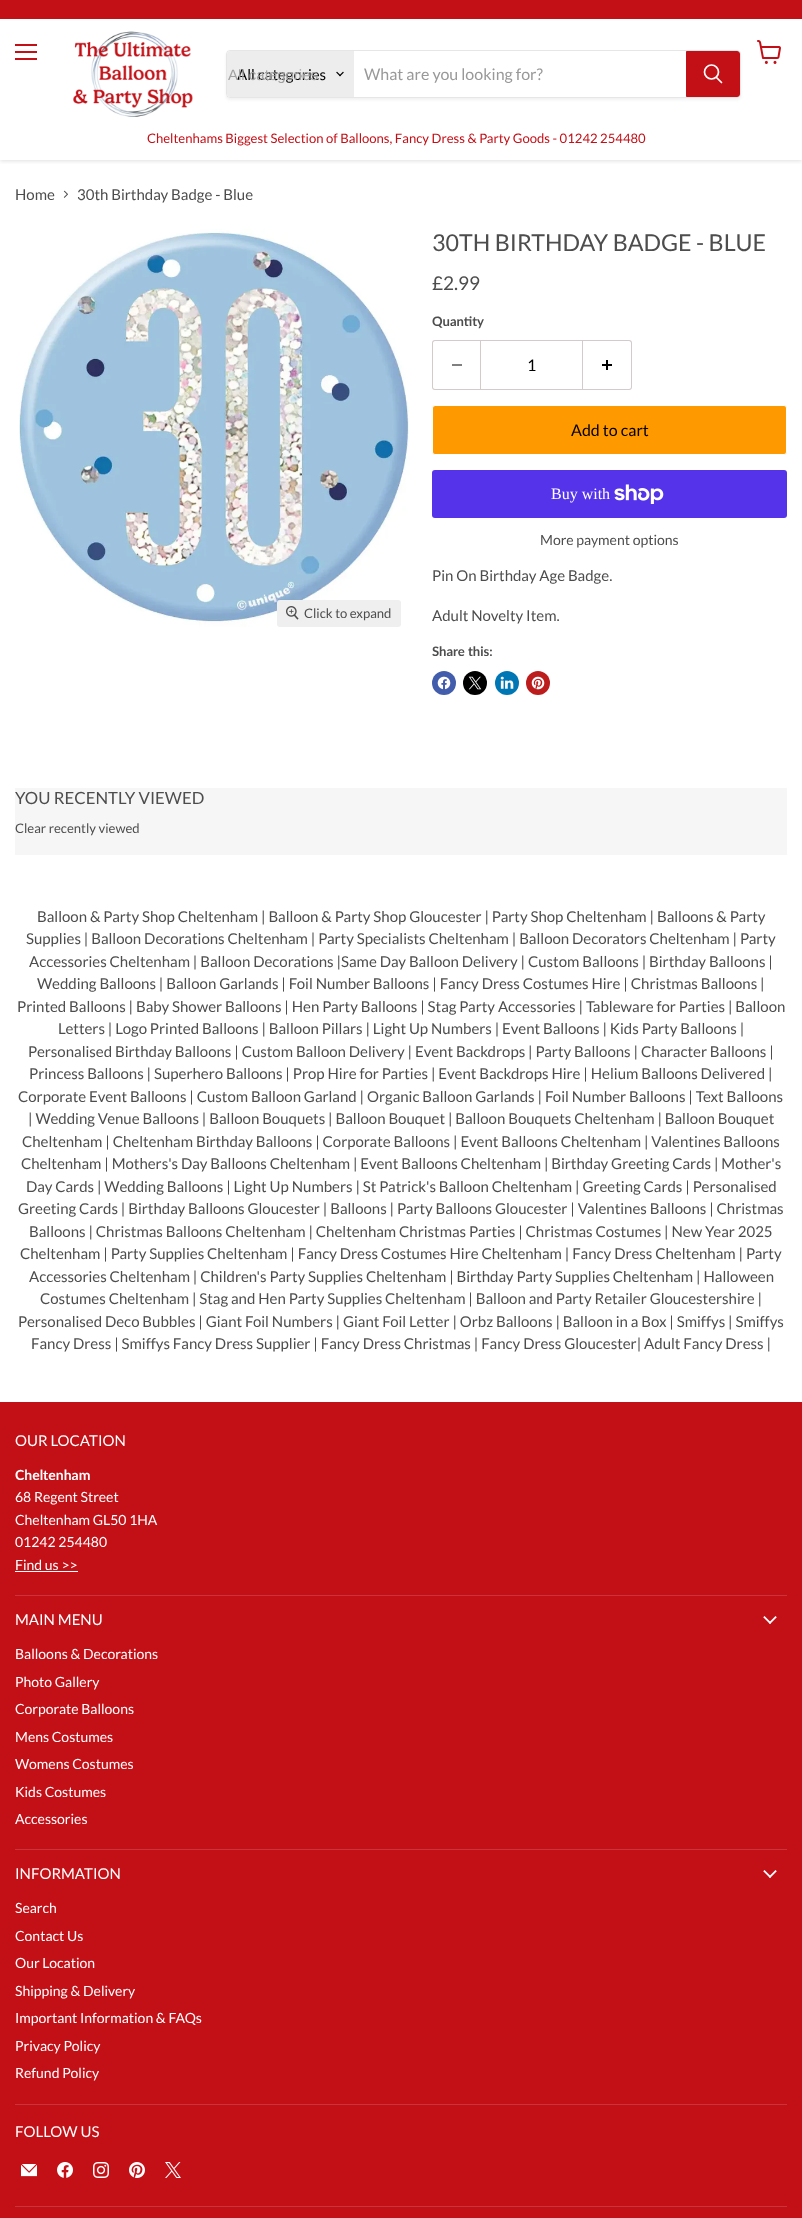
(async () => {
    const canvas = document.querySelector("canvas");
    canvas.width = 802;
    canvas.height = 2218;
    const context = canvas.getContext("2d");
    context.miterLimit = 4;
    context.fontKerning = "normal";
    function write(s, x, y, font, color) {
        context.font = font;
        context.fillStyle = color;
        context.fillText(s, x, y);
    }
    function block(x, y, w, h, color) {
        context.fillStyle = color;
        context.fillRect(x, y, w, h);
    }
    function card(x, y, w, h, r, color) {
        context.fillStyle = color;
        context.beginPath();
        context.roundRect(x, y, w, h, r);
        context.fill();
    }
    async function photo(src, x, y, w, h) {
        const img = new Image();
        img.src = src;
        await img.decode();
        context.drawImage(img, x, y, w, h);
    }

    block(0, 0, 802, 2218, "rgb(255, 255, 255)");
    context.save();
    context.beginPath();
    context.rect(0, 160, 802, 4);
    context.clip();
    context.fillStyle = "rgba(128, 128, 128, 0.25)";
    context.filter = "blur(2px)";
    context.beginPath();
    context.rect(0, 20, 802, 141);
    context.fill();
    context.filter = "none";
    context.restore();
    block(0, 0, 802, 19, "rgb(195, 15, 22)");
    block(15, 44, 22, 2, "rgb(195, 15, 22)");
    block(15, 51, 22, 2, "rgb(195, 15, 22)");
    block(15, 58, 22, 2, "rgb(195, 15, 22)");
    await photo("media/1.png", 757, 40, 24, 24);
    await photo("media/2.png", 73, 31, 120, 86);
    context.save();
    context.beginPath();
    context.moveTo(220, 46);
    context.lineTo(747, 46);
    context.lineTo(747, 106);
    context.lineTo(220, 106);
    context.closePath();
    context.moveTo(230, 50);
    context.lineTo(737, 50);
    context.bezierCurveTo(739, 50, 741, 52, 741, 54);
    context.lineTo(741, 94);
    context.bezierCurveTo(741, 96, 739, 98, 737, 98);
    context.lineTo(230, 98);
    context.bezierCurveTo(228, 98, 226, 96, 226, 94);
    context.lineTo(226, 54);
    context.bezierCurveTo(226, 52, 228, 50, 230, 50);
    context.closePath();
    context.clip("evenodd");
    context.fillStyle = "rgba(128, 128, 128, 0.11)";
    context.filter = "blur(1.5px)";
    context.beginPath();
    context.roundRect(226, 52, 515, 48, 4);
    context.fill();
    context.filter = "none";
    context.restore();
    context.beginPath();
    context.roundRect(226.5, 50.5, 514, 47, 3.5);
    context.strokeStyle = "rgba(128, 128, 128, 0.2)";
    context.stroke();
    context.fillStyle = "rgb(237, 237, 237)";
    context.beginPath();
    context.roundRect(227, 51, 127, 46, [3, 0, 0, 3]);
    context.fill();
    write("All categories", 237, 80, "15px Lato", "rgb(0, 0, 0)");
    write("All categories", 228, 80, "15px Liberation Sans", "rgb(162, 162, 162)");
    await photo("media/3.png", 336, 71, 8, 6);
    write("What are you looking for?", 364, 80, "16px Lato", "rgb(153, 153, 153)");
    context.fillStyle = "rgb(195, 15, 22)";
    context.beginPath();
    context.roundRect(686.5, 51.5, 53, 45, [0, 2.5, 2.5, 0]);
    context.fill();
    context.strokeStyle = "rgb(195, 15, 22)";
    context.stroke();
    context.beginPath();
    context.moveTo(721.5, 82.5);
    context.lineTo(716.5, 77.5);
    context.strokeStyle = "rgb(255, 255, 255)";
    context.lineWidth = 1.7;
    context.lineCap = "round";
    context.stroke();
    context.beginPath();
    context.arc(711.5, 72, 7, 0, Math.PI * 2);
    context.stroke();
    write("Cheltenhams Biggest Selection of Balloons, Fancy Dress & Party Goods - 01242 254480", 147, 143, "13.1px Lato", "rgb(195, 15, 22)");
    write("Home", 15, 200, "15px Lato", "rgb(77, 77, 77)");
    await photo("media/4.png", 63, 190, 5, 8);
    write("30th Birthday Badge - Blue", 77, 200, "15px Lato", "rgb(77, 77, 77)");
    await photo("media/5.png", 19, 229, 391, 398);
    card(277, 600, 124, 27, 3, "rgb(239, 239, 239)");
    await photo("media/6.png", 286, 606, 13, 14);
    write("Click to expand", 304, 618, "13.1px Lato", "rgb(77, 77, 77)");
    write("30TH BIRTHDAY BADGE - BLUE", 432, 251, "23.25px Lato", "rgb(77, 77, 77)");
    write("£2.99", 432, 290, "19px Lato", "rgb(77, 77, 77)");
    write("Quantity", 432, 326, "bold 13.1px Lato", "rgb(77, 77, 77)");
    context.fillStyle = "rgb(211, 203, 203)";
    context.beginPath();
    context.moveTo(435, 340);
    context.lineTo(480, 340);
    context.lineTo(480, 390);
    context.lineTo(435, 390);
    context.bezierCurveTo(433, 390, 432, 389, 432, 387);
    context.lineTo(432, 343);
    context.bezierCurveTo(432, 341, 433, 340, 435, 340);
    context.closePath();
    context.moveTo(435, 341);
    context.lineTo(480, 341);
    context.lineTo(480, 389);
    context.lineTo(435, 389);
    context.bezierCurveTo(434, 389, 433, 388, 433, 387);
    context.lineTo(433, 343);
    context.bezierCurveTo(433, 342, 434, 341, 435, 341);
    context.closePath();
    context.fill("evenodd");
    block(452, 364, 10, 2, "rgb(128, 128, 128)");
    context.strokeStyle = "rgb(211, 203, 203)";
    context.lineWidth = 1;
    context.strokeRect(480.5, 340.5, 102, 49);
    write("1", 527, 371, "16px Lato", "rgb(0, 0, 0)");
    context.fillStyle = "rgb(211, 203, 203)";
    context.beginPath();
    context.moveTo(583, 340);
    context.lineTo(629, 340);
    context.bezierCurveTo(631, 340, 632, 341, 632, 343);
    context.lineTo(632, 387);
    context.bezierCurveTo(632, 389, 631, 390, 629, 390);
    context.lineTo(583, 390);
    context.closePath();
    context.moveTo(583, 341);
    context.lineTo(629, 341);
    context.bezierCurveTo(630, 341, 631, 342, 631, 343);
    context.lineTo(631, 387);
    context.bezierCurveTo(631, 388, 630, 389, 629, 389);
    context.lineTo(583, 389);
    context.closePath();
    context.fill("evenodd");
    await photo("media/7.png", 602, 360, 10, 10);
    context.fillStyle = "rgb(255, 153, 0)";
    context.beginPath();
    context.roundRect(432.5, 405.5, 354, 49, 2.5);
    context.fill();
    context.strokeStyle = "rgb(255, 255, 255)";
    context.stroke();
    write("Add to cart", 571, 436, "16px Lato", "rgb(0, 0, 0)");
    card(432, 470, 355, 48, 3, "rgb(84, 51, 235)");
    write("Buy with", 551, 499, "16px Liberation Serif", "rgb(255, 255, 255)");
    await photo("media/8.png", 614, 484, 50, 20);
    write("More payment options", 540, 545, "14px Lato", "rgb(77, 77, 77)");
    write("Pin On Birthday Age Badge.", 432, 581, "15px Lato", "rgb(77, 77, 77)");
    write("Adult Novelty Item.", 432, 621, "15px Lato", "rgb(77, 77, 77)");
    write("Share this:", 432, 656, "bold 13.1px Lato", "rgb(77, 77, 77)");
    context.fillStyle = "rgb(66, 93, 171)";
    context.beginPath();
    context.arc(444, 683, 12, 0, Math.PI * 2);
    context.fill();
    await photo("media/9.png", 437, 676, 14, 14);
    context.fillStyle = "rgb(0, 0, 0)";
    context.beginPath();
    context.arc(475, 683, 12, 0, Math.PI * 2);
    context.fill();
    await photo("media/10.png", 468, 676, 14, 14);
    context.fillStyle = "rgb(0, 119, 181)";
    context.beginPath();
    context.arc(507, 683, 12, 0, Math.PI * 2);
    context.fill();
    await photo("media/11.png", 500, 676, 14, 13);
    context.fillStyle = "rgb(189, 28, 28)";
    context.beginPath();
    context.arc(538, 683, 12, 0, Math.PI * 2);
    context.fill();
    await photo("media/12.png", 531, 676, 14, 14);
    block(15, 788, 772, 67, "rgb(246, 246, 246)");
    write("YOU RECENTLY VIEWED", 15, 804, "16.75px Lato", "rgb(77, 77, 77)");
    write("Clear recently viewed", 15, 833, "13.1px Lato", "rgb(77, 77, 77)");
    write("Balloon & Party Shop Cheltenham | Balloon & Party Shop Gloucester | Party Shop Cheltenham | Balloons & Party", 37, 922, "15px Lato", "rgb(77, 77, 77)");
    write("Supplies | Balloon Decorations Cheltenham | Party Specialists Cheltenham | Balloon Decorators Cheltenham | Party", 26, 944, "15px Lato", "rgb(77, 77, 77)");
    write("Accessories Cheltenham | Balloon Decorations |Same Day Balloon Delivery | Custom Balloons | Birthday Balloons |", 29, 967, "15px Lato", "rgb(77, 77, 77)");
    write("Wedding Balloons | Balloon Garlands | Foil Number Balloons | Fancy Dress Costumes Hire | Christmas Balloons |", 37, 989, "15px Lato", "rgb(77, 77, 77)");
    write("Printed Balloons | Baby Shower Balloons | Hen Party Balloons | Stag Party Accessories | Tableware for Parties | Balloon", 17, 1012, "15px Lato", "rgb(77, 77, 77)");
    write("Letters | Logo Printed Balloons | Balloon Pillars | Light Up Numbers | Event Balloons | Kids Party Balloons |", 58, 1034, "15px Lato", "rgb(77, 77, 77)");
    write("Personalised Birthday Balloons | Custom Balloon Delivery | Event Backdrops | Party Balloons | Character Balloons |", 28, 1057, "15px Lato", "rgb(77, 77, 77)");
    write("Princess Balloons | Superhero Balloons | Prop Hire for Parties | Event Backdrops Hire | Helium Balloons Delivered |", 29, 1079, "15px Lato", "rgb(77, 77, 77)");
    write("Corporate Event Balloons | Custom Balloon Garland | Organic Balloon Garlands | Foil Number Balloons | Text Balloons", 18, 1102, "15px Lato", "rgb(77, 77, 77)");
    write("| Wedding Venue Balloons | Balloon Bouquets | Balloon Bouquet | Balloon Bouquets Cheltenham | Balloon Bouquet", 28, 1124, "15px Lato", "rgb(77, 77, 77)");
    write("Cheltenham | Cheltenham Birthday Balloons | Corporate Balloons | Event Balloons Cheltenham | Valentines Balloons", 22, 1147, "15px Lato", "rgb(77, 77, 77)");
    write("Cheltenham | Mothers's Day Balloons Cheltenham | Event Balloons Cheltenham | Birthday Greeting Cards | Mother's", 21, 1169, "15px Lato", "rgb(77, 77, 77)");
    write("Day Cards | Wedding Balloons | Light Up Numbers | St Patrick's Balloon Cheltenham | Greeting Cards | Personalised", 26, 1192, "15px Lato", "rgb(77, 77, 77)");
    write("Greeting Cards | Birthday Balloons Gloucester | Balloons | Party Balloons Gloucester | Valentines Balloons | Christmas", 18, 1214, "15px Lato", "rgb(77, 77, 77)");
    write("Balloons | Christmas Balloons Cheltenham | Cheltenham Christmas Parties | Christmas Costumes | New Year 2025", 29, 1237, "15px Lato", "rgb(77, 77, 77)");
    write("Cheltenham | Party Supplies Cheltenham | Fancy Dress Costumes Hire Cheltenham | Fancy Dress Cheltenham | Party", 20, 1259, "15px Lato", "rgb(77, 77, 77)");
    write("Accessories Cheltenham | Children's Party Supplies Cheltenham | Birthday Party Supplies Cheltenham | Halloween", 29, 1282, "15px Lato", "rgb(77, 77, 77)");
    write("Costumes Cheltenham | Stag and Hen Party Supplies Cheltenham | Balloon and Party Retailer Gloucestershire |", 40, 1304, "15px Lato", "rgb(77, 77, 77)");
    write("Personalised Deco Bubbles | Giant Foil Numbers | Giant Foil Letter | Orbz Balloons | Balloon in a Box | Smiffys | Smiffys", 18, 1327, "15px Lato", "rgb(77, 77, 77)");
    write("Fancy Dress | Smiffys Fancy Dress Supplier | Fancy Dress Christmas | Fancy Dress Gloucester| Adult Fancy Dress |", 31, 1349, "15px Lato", "rgb(77, 77, 77)");
    block(0, 1402, 802, 816, "rgb(195, 15, 22)");
    block(15, 1595, 772, 1, "rgb(204, 51, 57)");
    write("OUR LOCATION", 15, 1446, "15px Lato", "rgb(255, 255, 255)");
    write("Cheltenham", 15, 1480, "bold 14px Lato", "rgb(255, 255, 255)");
    write("68 Regent Street", 15, 1502, "14px Lato", "rgb(255, 255, 255)");
    write("Cheltenham GL50 1HA", 15, 1525, "14px Lato", "rgb(255, 255, 255)");
    write("01242 254480", 15, 1547, "14px Lato", "rgb(255, 255, 255)");
    write("Find us >>", 15, 1570, "14px Lato", "rgb(255, 255, 255)");
    block(15, 1571, 63, 1, "rgb(255, 255, 255)");
    block(15, 1849, 772, 1, "rgb(204, 51, 57)");
    write("MAIN MENU", 15, 1625, "15px Lato", "rgb(255, 255, 255)");
    await photo("media/13.png", 763, 1616, 14, 8);
    write("Balloons & Decorations", 15, 1659, "14px Lato", "rgb(255, 255, 255)");
    write("Photo Gallery", 15, 1687, "14px Lato", "rgb(255, 255, 255)");
    write("Corporate Balloons", 15, 1714, "14px Lato", "rgb(255, 255, 255)");
    write("Mens Costumes", 15, 1742, "14px Lato", "rgb(255, 255, 255)");
    write("Womens Costumes", 15, 1769, "14px Lato", "rgb(255, 255, 255)");
    write("Kids Costumes", 15, 1797, "14px Lato", "rgb(255, 255, 255)");
    write("Accessories", 15, 1824, "14px Lato", "rgb(255, 255, 255)");
    block(15, 2104, 772, 1, "rgb(204, 51, 57)");
    write("INFORMATION", 15, 1879, "15px Lato", "rgb(255, 255, 255)");
    await photo("media/13.png", 763, 1870, 14, 8);
    write("Search", 15, 1913, "14px Lato", "rgb(255, 255, 255)");
    write("Contact Us", 15, 1941, "14px Lato", "rgb(255, 255, 255)");
    write("Our Location", 15, 1968, "14px Lato", "rgb(255, 255, 255)");
    write("Shipping & Delivery", 15, 1996, "14px Lato", "rgb(255, 255, 255)");
    write("Important Information & FAQs", 15, 2023, "14px Lato", "rgb(255, 255, 255)");
    write("Privacy Policy", 15, 2051, "14px Lato", "rgb(255, 255, 255)");
    write("Refund Policy", 15, 2078, "14px Lato", "rgb(255, 255, 255)");
    block(15, 2206, 772, 1, "rgb(204, 51, 57)");
    write("FOLLOW US", 15, 2137, "15px Lato", "rgb(255, 255, 255)");
    await photo("media/14.png", 21, 2164, 16, 13);
    await photo("media/15.png", 57, 2162, 16, 16);
    await photo("media/16.png", 93, 2162, 16, 16);
    await photo("media/17.png", 129, 2162, 16, 16);
    await photo("media/18.png", 165, 2162, 16, 16);
})();
